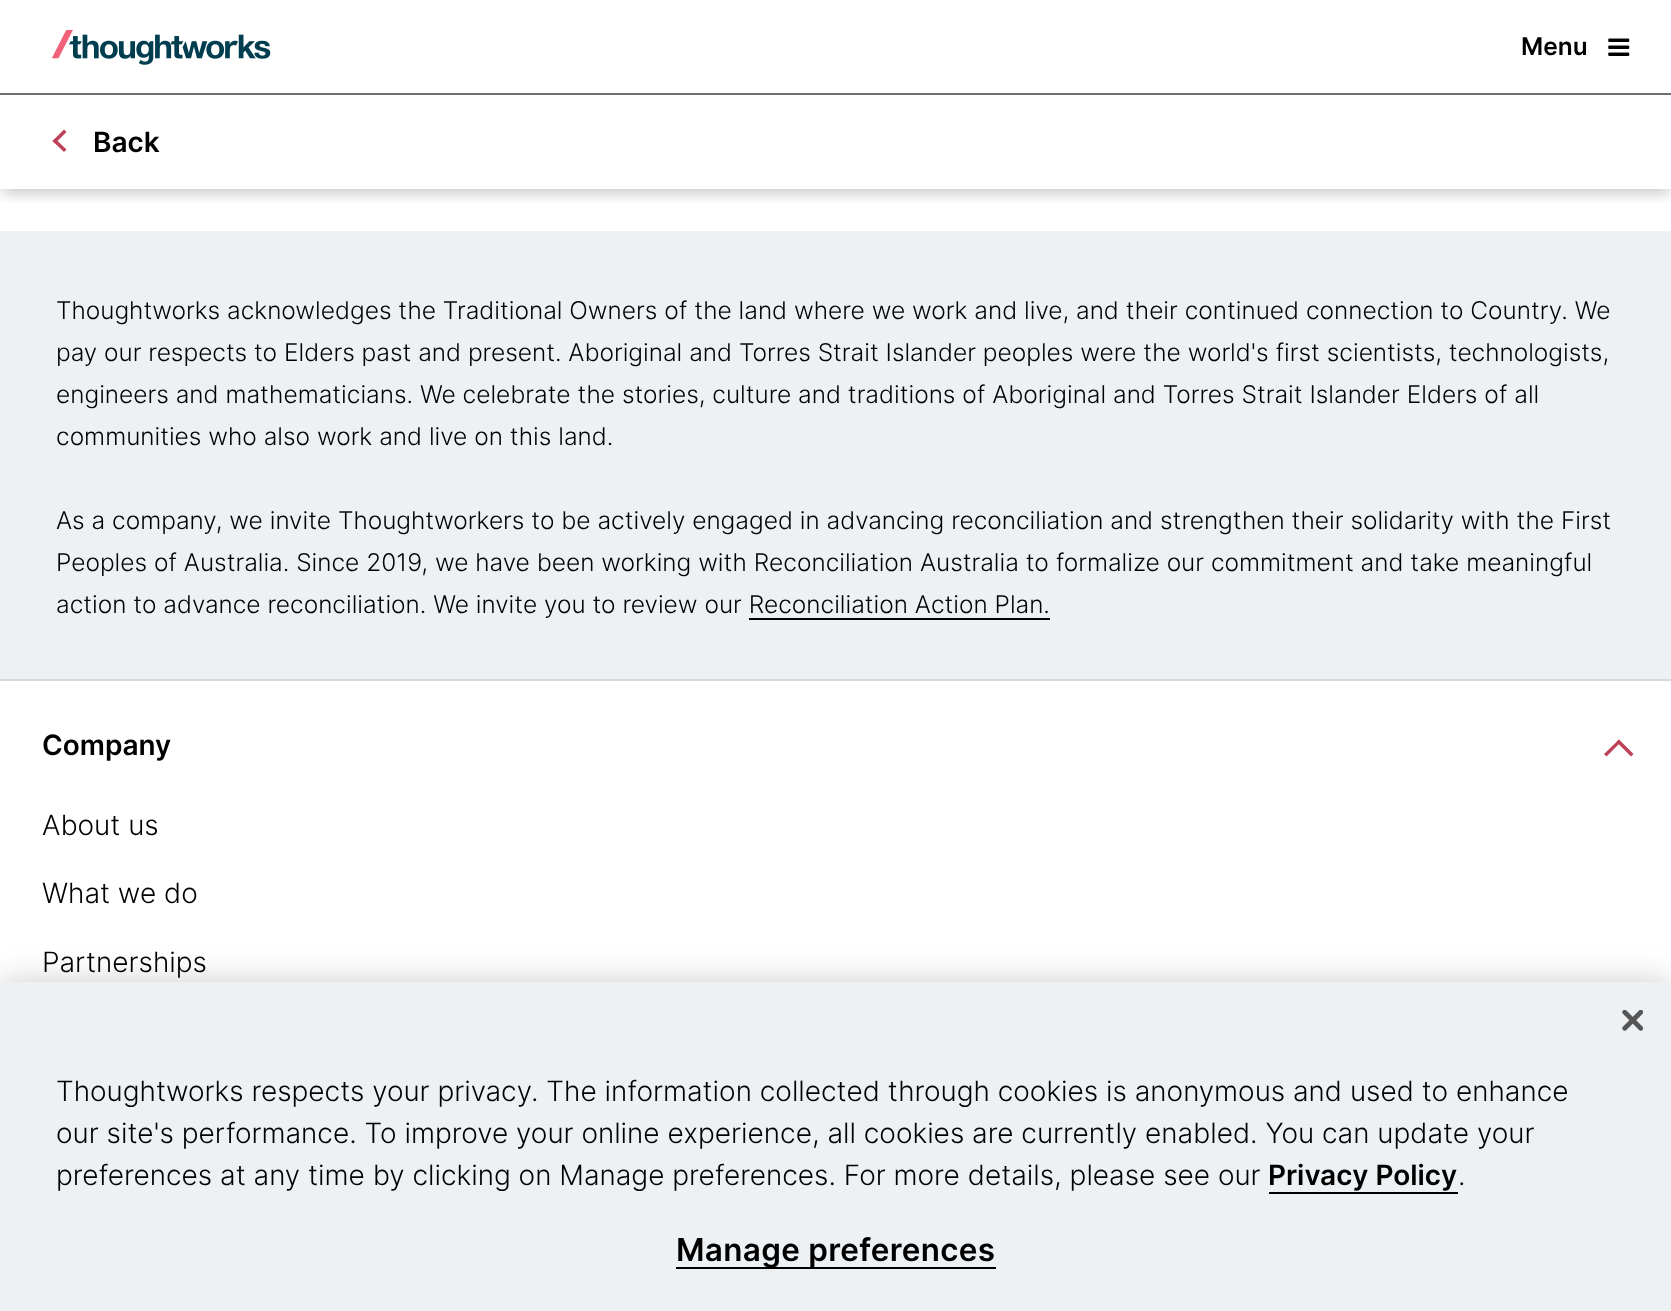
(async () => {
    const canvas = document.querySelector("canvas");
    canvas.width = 1671;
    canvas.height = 1311;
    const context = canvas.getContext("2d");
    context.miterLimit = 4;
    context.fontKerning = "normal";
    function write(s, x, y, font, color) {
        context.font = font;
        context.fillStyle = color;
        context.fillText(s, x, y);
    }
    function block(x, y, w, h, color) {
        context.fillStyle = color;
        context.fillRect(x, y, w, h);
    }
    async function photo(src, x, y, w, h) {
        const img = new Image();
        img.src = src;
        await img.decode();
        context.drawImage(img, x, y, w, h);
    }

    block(0, 0, 1671, 1311, "rgb(255, 255, 255)");
    context.save();
    context.beginPath();
    context.rect(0, 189, 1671, 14);
    context.clip();
    context.fillStyle = "rgba(0, 0, 0, 0.2)";
    context.filter = "blur(7px)";
    context.beginPath();
    context.rect(2, 103, 1668, 91);
    context.fill();
    context.filter = "none";
    context.restore();
    block(7, 92, 1658, 1, "rgb(255, 255, 255)");
    block(0, 93, 1671, 2, "rgb(112, 112, 112)");
    await photo("media/1.png", 51, 30, 220, 35);
    write("Menu", 1521, 55, "600 24.5px Inter", "rgb(0, 0, 0)");
    await photo("media/2.png", 1608, 38, 22, 18);
    context.fillStyle = "rgb(189, 66, 87)";
    context.beginPath();
    context.moveTo(64, 152);
    context.lineTo(52.5, 141);
    context.lineTo(55, 138.5);
    context.lineTo(66.5, 149.5);
    context.closePath();
    context.fill();
    context.beginPath();
    context.moveTo(55, 143.5);
    context.lineTo(52.5, 141);
    context.lineTo(64, 129.5);
    context.lineTo(66.5, 132);
    context.closePath();
    context.fill();
    write("Back", 93, 152, "600 28px Inter", "rgb(0, 0, 0)");
    block(0, 231, 1671, 448, "rgb(237, 241, 243)");
    write("Thoughtworks acknowledges the Traditional Owners of the land where we work and live, and their continued connection to Country. We", 56, 319, "300 24.5px Inter", "rgb(0, 0, 0)");
    write("pay our respects to Elders past and present. Aboriginal and Torres Strait Islander peoples were the world's first scientists, technologists,", 56, 361, "300 24.5px Inter", "rgb(0, 0, 0)");
    write("engineers and mathematicians. We celebrate the stories, culture and traditions of Aboriginal and Torres Strait Islander Elders of all", 56, 403, "300 24.5px Inter", "rgb(0, 0, 0)");
    write("communities who also work and live on this land.", 56, 445, "300 24.5px Inter", "rgb(0, 0, 0)");
    write("As a company, we invite Thoughtworkers to be actively engaged in advancing reconciliation and strengthen their solidarity with the First", 56, 529, "300 24.5px Inter", "rgb(0, 0, 0)");
    write("Peoples of Australia. Since 2019, we have been working with Reconciliation Australia to formalize our commitment and take meaningful", 56, 571, "300 24.5px Inter", "rgb(0, 0, 0)");
    write("action to advance reconciliation. We invite you to review our Reconciliation Action Plan.", 56, 613, "300 24.5px Inter", "rgb(0, 0, 0)");
    block(749, 618, 301, 2, "rgb(0, 0, 0)");
    block(0, 679, 1671, 2, "rgb(213, 217, 219)");
    write("Company", 42, 755, "600 28px Inter", "rgb(0, 0, 0)");
    context.fillStyle = "rgb(189, 66, 87)";
    context.beginPath();
    context.moveTo(1604, 754);
    context.lineTo(1619, 739.5);
    context.lineTo(1621, 742);
    context.lineTo(1606.5, 756.5);
    context.closePath();
    context.fill();
    context.beginPath();
    context.moveTo(1616.5, 742);
    context.lineTo(1619, 739.5);
    context.lineTo(1633.5, 754);
    context.lineTo(1631, 756.5);
    context.closePath();
    context.fill();
    write("About us", 42, 835, "300 28px Inter", "rgb(0, 0, 0)");
    write("What we do", 42, 903, "300 28px Inter", "rgb(0, 0, 0)");
    write("Partnerships", 42, 972, "300 28px Inter", "rgb(0, 0, 0)");
    context.fillStyle = "rgba(0, 0, 0, 0.2)";
    context.filter = "blur(16px)";
    context.beginPath();
    context.rect(0, 982, 1671, 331);
    context.fill();
    context.filter = "none";
    block(0, 982, 1671, 329, "rgb(237, 241, 243)");
    await photo("media/3.png", 1622, 1010, 21, 21);
    write("Thoughtworks respects your privacy. The information collected through cookies is anonymous and used to enhance", 56, 1101, "300 28px Inter", "rgb(0, 0, 0)");
    write("our site's performance. To improve your online experience, all cookies are currently enabled. You can update your", 56, 1143, "300 28px Inter", "rgb(0, 0, 0)");
    write("preferences at any time by clicking on Manage preferences. For more details, please see our", 56, 1185, "300 28px Inter", "rgb(0, 0, 0)");
    write("Privacy Policy", 1268, 1185, "600 28px Inter", "rgb(0, 0, 0)");
    block(1269, 1192, 189, 2, "rgb(0, 0, 0)");
    write(".", 1458, 1185, "300 28px Inter", "rgb(0, 0, 0)");
    block(676, 1267, 320, 2, "rgb(0, 0, 0)");
    context.letterSpacing = "0.3px";
    write("Manage preferences", 676, 1261, "600 31.5px Inter", "rgb(0, 0, 0)");
})();
